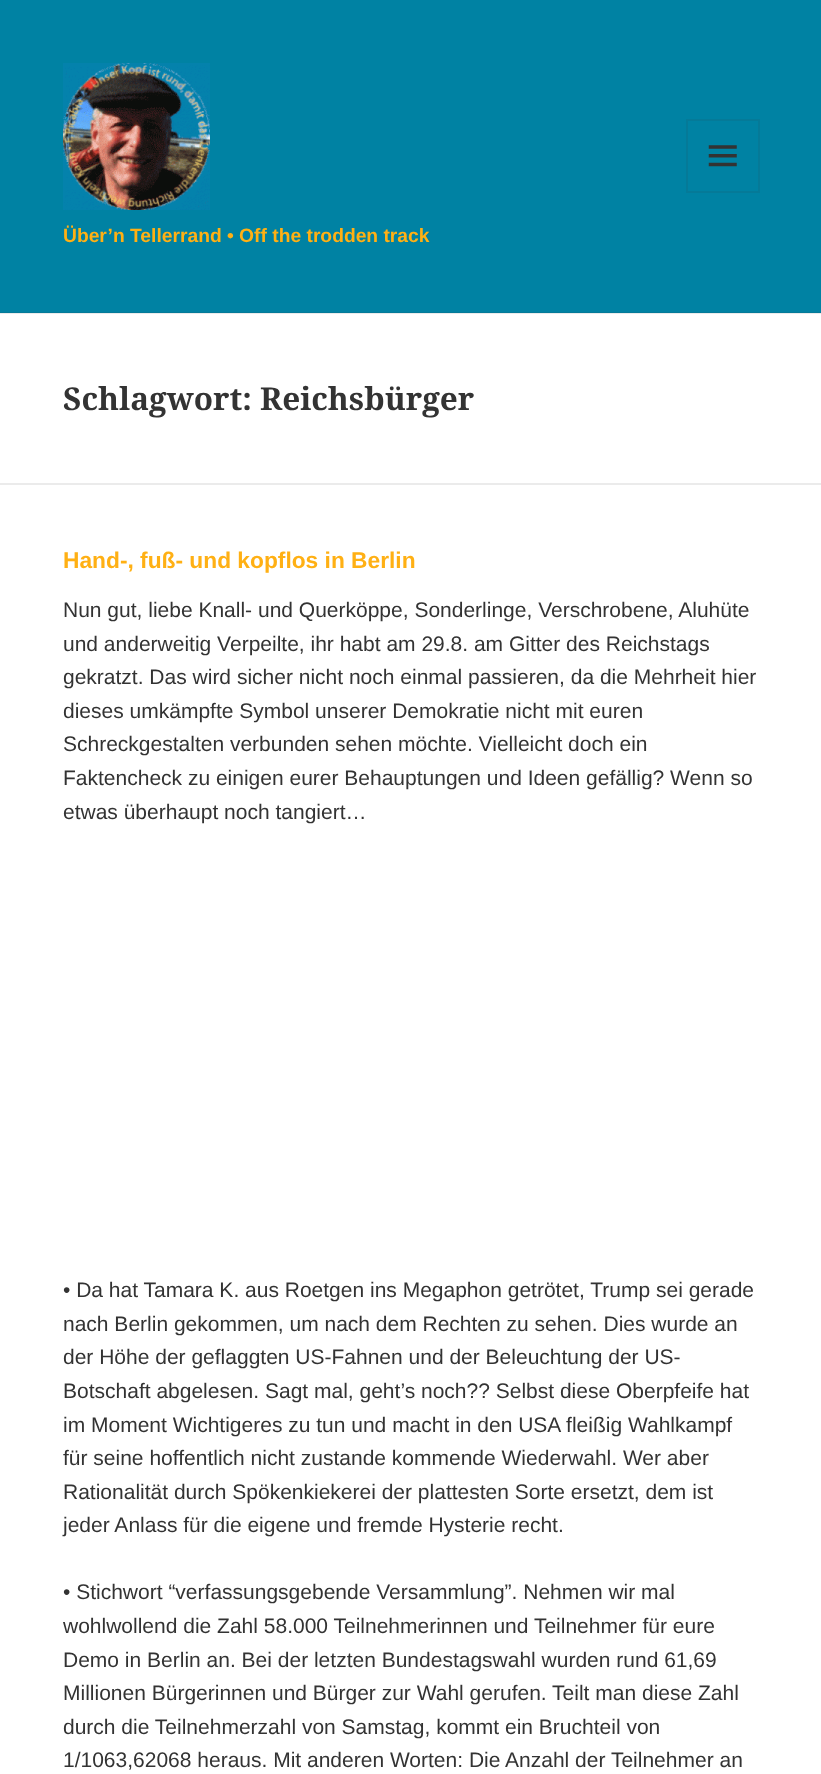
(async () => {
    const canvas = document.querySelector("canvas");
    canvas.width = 821;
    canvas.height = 1774;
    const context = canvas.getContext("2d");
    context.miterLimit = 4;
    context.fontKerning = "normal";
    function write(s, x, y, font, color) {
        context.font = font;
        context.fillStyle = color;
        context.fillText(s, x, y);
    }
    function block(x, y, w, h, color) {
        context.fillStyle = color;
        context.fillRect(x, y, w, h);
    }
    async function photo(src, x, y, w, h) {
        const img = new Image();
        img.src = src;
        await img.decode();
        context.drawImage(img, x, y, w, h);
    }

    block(0, 0, 821, 1774, "rgb(255, 255, 255)");
    block(0, 0, 821, 312, "rgb(0, 130, 163)");
    block(0, 312, 821, 1, "rgb(5, 122, 152)");
    await photo("media/1.png", 63, 63, 147, 147);
    context.strokeStyle = "rgb(5, 122, 152)";
    context.lineWidth = 2;
    context.strokeRect(687, 120, 72, 72);
    await photo("media/2.png", 708, 145, 29, 22);
    write("Über’n Tellerrand • Off the trodden track", 63, 242, "bold 19.25px Liberation Sans", "rgb(255, 176, 20)");
    block(0, 313, 821, 1, "rgb(235, 235, 235)");
    block(0, 483, 821, 2, "rgb(235, 235, 235)");
    write("Schlagwort: Reichsbürger", 63, 410, "bold 31.5px Noto Serif", "rgb(51, 51, 51)");
    write("Hand-, fuß- und kopflos in Berlin", 63, 568, "bold 22.75px Liberation Sans", "rgb(255, 176, 20)");
    write("Nun gut, liebe Knall- und Querköppe, Sonderlinge, Verschrobene, Aluhüte", 63, 617, "21px Liberation Sans", "rgb(51, 51, 51)");
    write("und anderweitig Verpeilte, ihr habt am 29.8. am Gitter des Reichstags", 63, 651, "21px Liberation Sans", "rgb(51, 51, 51)");
    write("gekratzt. Das wird sicher nicht noch einmal passieren, da die Mehrheit hier", 63, 684, "21px Liberation Sans", "rgb(51, 51, 51)");
    write("dieses umkämpfte Symbol unserer Demokratie nicht mit euren", 63, 718, "21px Liberation Sans", "rgb(51, 51, 51)");
    write("Schreckgestalten verbunden sehen möchte. Vielleicht doch ein", 63, 751, "21px Liberation Sans", "rgb(51, 51, 51)");
    write("Faktencheck zu einigen eurer Behauptungen und Ideen gefällig? Wenn so", 63, 785, "21px Liberation Sans", "rgb(51, 51, 51)");
    write("etwas überhaupt noch tangiert…", 63, 819, "21px Liberation Sans", "rgb(51, 51, 51)");
    write("• Da hat Tamara K. aus Roetgen ins Megaphon getrötet, Trump sei gerade", 63, 1297, "21px Liberation Sans", "rgb(51, 51, 51)");
    write("nach Berlin gekommen, um nach dem Rechten zu sehen. Dies wurde an", 63, 1331, "21px Liberation Sans", "rgb(51, 51, 51)");
    write("der Höhe der geflaggten US-Fahnen und der Beleuchtung der US-", 63, 1364, "21px Liberation Sans", "rgb(51, 51, 51)");
    write("Botschaft abgelesen. Sagt mal, geht’s noch?? Selbst diese Oberpfeife hat", 63, 1398, "21px Liberation Sans", "rgb(51, 51, 51)");
    write("im Moment Wichtigeres zu tun und macht in den USA fleißig Wahlkampf", 63, 1432, "21px Liberation Sans", "rgb(51, 51, 51)");
    write("für seine hoffentlich nicht zustande kommende Wiederwahl. Wer aber", 63, 1465, "21px Liberation Sans", "rgb(51, 51, 51)");
    write("Rationalität durch Spökenkiekerei der plattesten Sorte ersetzt, dem ist", 63, 1499, "21px Liberation Sans", "rgb(51, 51, 51)");
    write("jeder Anlass für die eigene und fremde Hysterie recht.", 63, 1532, "21px Liberation Sans", "rgb(51, 51, 51)");
    write("• Stichwort “verfassungsgebende Versammlung”. Nehmen wir mal", 63, 1599, "21px Liberation Sans", "rgb(51, 51, 51)");
    write("wohlwollend die Zahl 58.000 Teilnehmerinnen und Teilnehmer für eure", 63, 1633, "21px Liberation Sans", "rgb(51, 51, 51)");
    write("Demo in Berlin an. Bei der letzten Bundestagswahl wurden rund 61,69", 63, 1667, "21px Liberation Sans", "rgb(51, 51, 51)");
    write("Millionen Bürgerinnen und Bürger zur Wahl gerufen. Teilt man diese Zahl", 63, 1700, "21px Liberation Sans", "rgb(51, 51, 51)");
    write("durch die Teilnehmerzahl von Samstag, kommt ein Bruchteil von", 63, 1734, "21px Liberation Sans", "rgb(51, 51, 51)");
    write("1/1063,62068 heraus. Mit anderen Worten: Die Anzahl der Teilnehmer an", 63, 1767, "21px Liberation Sans", "rgb(51, 51, 51)");
})();
